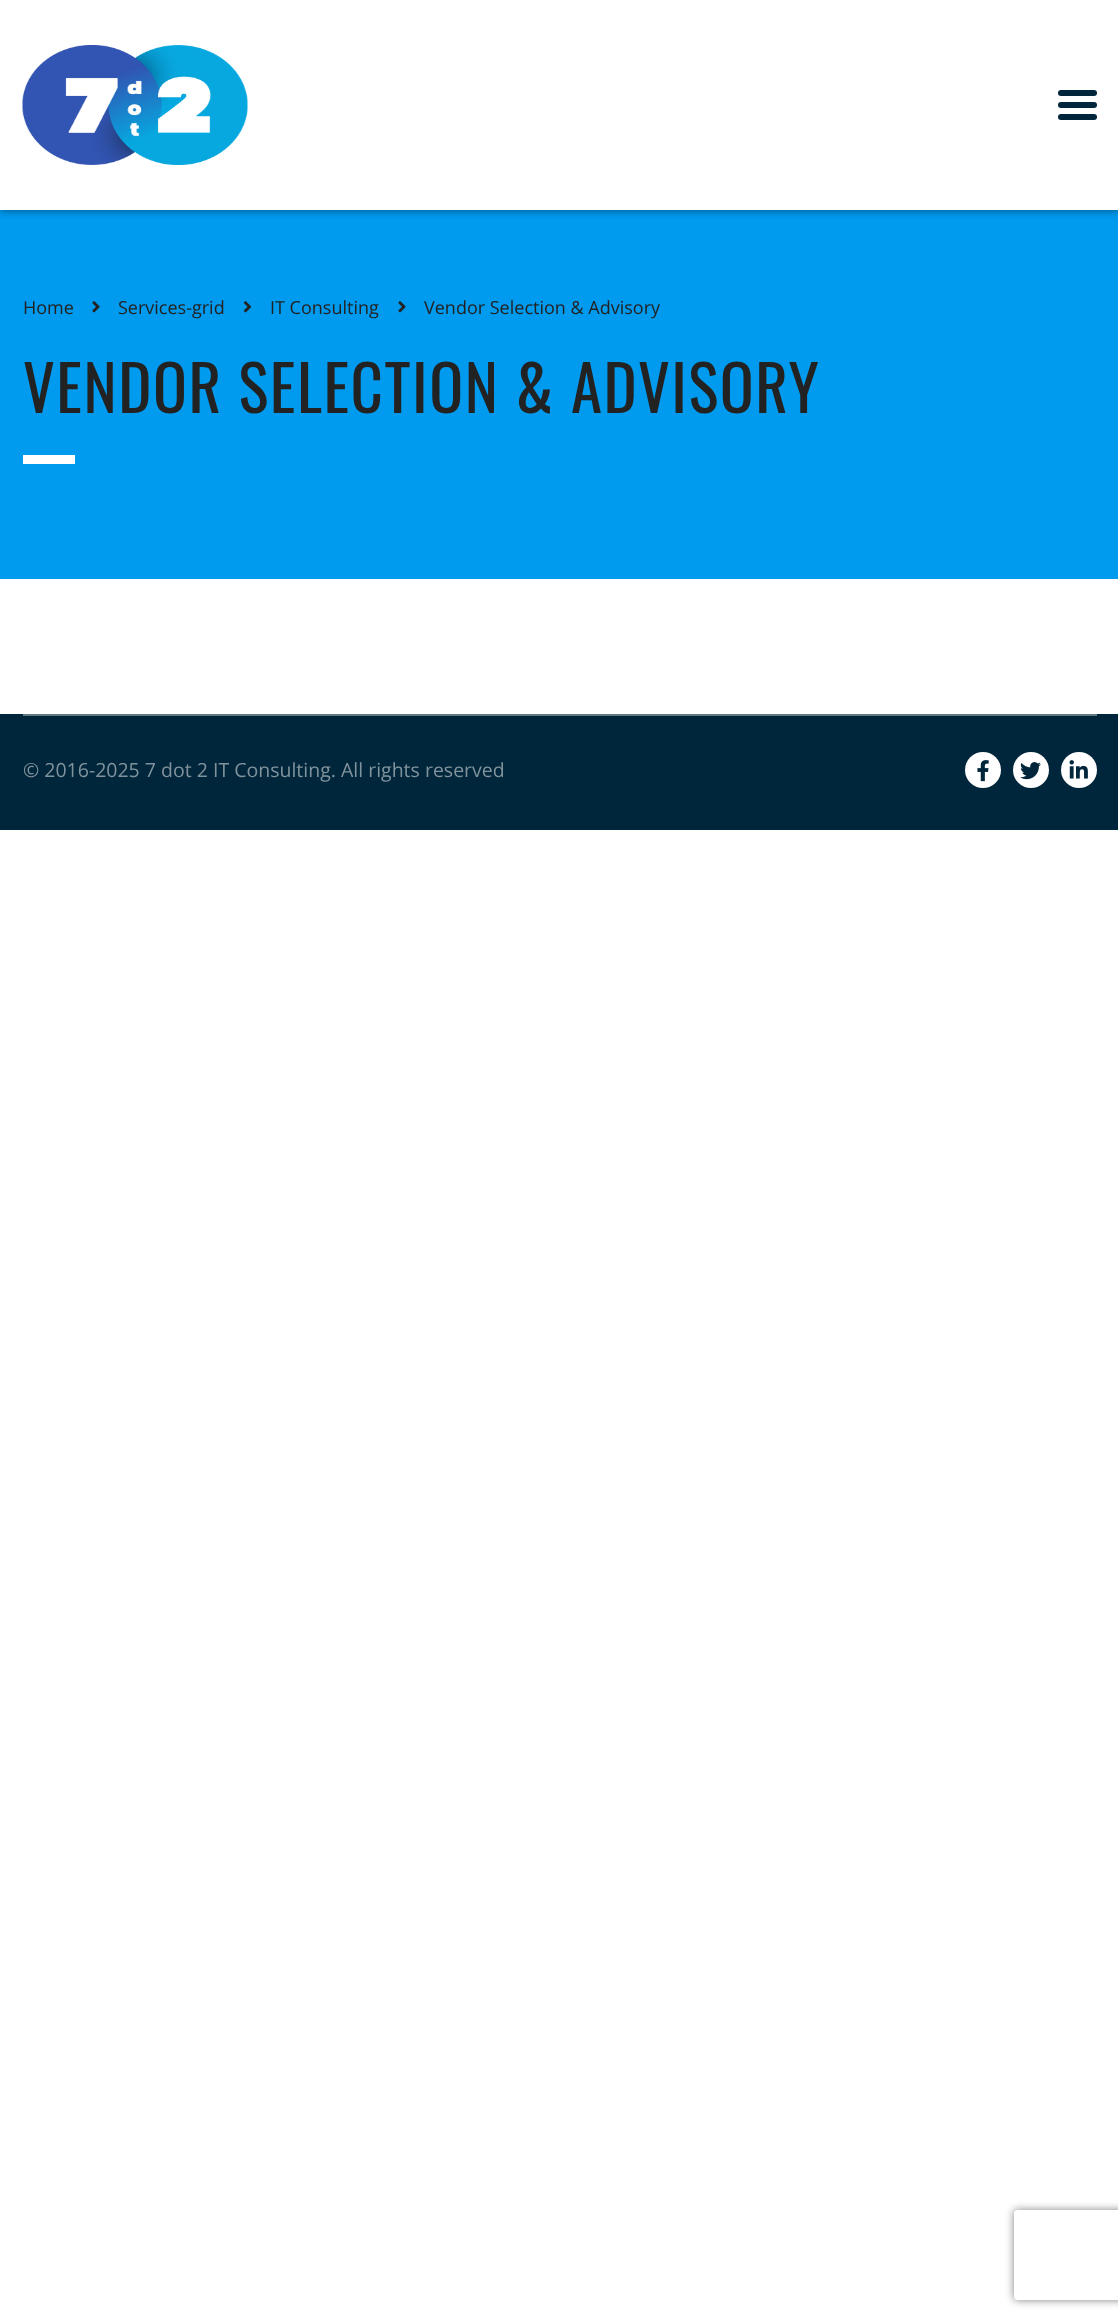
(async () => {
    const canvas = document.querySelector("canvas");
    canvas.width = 1118;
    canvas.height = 2320;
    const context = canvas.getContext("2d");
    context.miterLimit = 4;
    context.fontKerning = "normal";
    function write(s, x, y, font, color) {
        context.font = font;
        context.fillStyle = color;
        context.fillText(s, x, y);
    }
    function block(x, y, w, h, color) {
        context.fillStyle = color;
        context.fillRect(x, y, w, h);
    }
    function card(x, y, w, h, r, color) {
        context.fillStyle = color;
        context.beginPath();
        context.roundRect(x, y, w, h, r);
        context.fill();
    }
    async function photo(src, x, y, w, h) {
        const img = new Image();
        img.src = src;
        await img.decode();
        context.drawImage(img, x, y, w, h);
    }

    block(0, 0, 1118, 2320, "rgb(255, 255, 255)");
    block(0, 210, 1118, 369, "rgb(0, 154, 238)");
    context.fillStyle = "rgba(0, 0, 0, 0.52)";
    context.filter = "blur(4px)";
    context.beginPath();
    context.rect(0, 0, 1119, 210);
    context.fill();
    context.filter = "none";
    block(0, 0, 1118, 210, "rgb(255, 255, 255)");
    await photo("media/1.png", 22, 45, 226, 120);
    card(1058, 102, 39, 6, 3, "rgb(0, 38, 59)");
    card(1058, 90, 39, 6, 3, "rgb(0, 38, 59)");
    card(1058, 114, 39, 6, 3, "rgb(0, 38, 59)");
    write("Home", 23, 314, "18px Open Sans", "rgb(34, 34, 34)");
    await photo("media/2.png", 92, 301, 8, 12);
    write("Services-grid", 118, 314, "18px Open Sans", "rgb(34, 34, 34)");
    await photo("media/3.png", 243, 301, 9, 12);
    write("IT Consulting", 270, 314, "18px Open Sans", "rgb(34, 34, 34)");
    await photo("media/2.png", 398, 301, 8, 12);
    write("Vendor Selection & Advisory", 424, 314, "18px Open Sans", "rgb(34, 34, 34)");
    context.letterSpacing = "1.5px";
    write("VENDOR SELECTION & ADVISORY", 23, 413, "63px Oswald", "rgb(34, 34, 34)");
    block(23, 455, 52, 9, "rgb(255, 255, 255)");
    block(0, 714, 1118, 116, "rgb(0, 38, 59)");
    block(23, 714, 1074, 2, "rgb(102, 121, 131)");
    context.letterSpacing = "0px";
    write("© 2016-2025 7 dot 2 IT Consulting. All rights reserved", 23, 777, "19.5px Open Sans", "rgb(128, 147, 157)");
    context.fillStyle = "rgb(255, 255, 255)";
    context.beginPath();
    context.arc(983, 770, 18, 0, Math.PI * 2);
    context.fill();
    await photo("media/4.png", 977, 760, 12, 22);
    context.beginPath();
    context.arc(1031, 770, 18, 0, Math.PI * 2);
    context.fill();
    await photo("media/5.png", 1020, 762, 21, 18);
    context.beginPath();
    context.arc(1079, 770, 18, 0, Math.PI * 2);
    context.fill();
    await photo("media/6.png", 1069, 760, 19, 19);
    context.save();
    context.beginPath();
    context.moveTo(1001, 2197);
    context.lineTo(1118, 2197);
    context.lineTo(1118, 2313);
    context.lineTo(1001, 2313);
    context.closePath();
    context.moveTo(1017, 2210);
    context.lineTo(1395, 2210);
    context.bezierCurveTo(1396.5, 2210, 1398, 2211.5, 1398, 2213);
    context.lineTo(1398, 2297);
    context.bezierCurveTo(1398, 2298.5, 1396.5, 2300, 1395, 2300);
    context.lineTo(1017, 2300);
    context.bezierCurveTo(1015.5, 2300, 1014, 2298.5, 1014, 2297);
    context.lineTo(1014, 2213);
    context.bezierCurveTo(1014, 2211.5, 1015.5, 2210, 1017, 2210);
    context.closePath();
    context.clip("evenodd");
    context.fillStyle = "rgb(128, 128, 128)";
    context.filter = "blur(4px)";
    context.beginPath();
    context.roundRect(1014, 2210, 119, 90, 3);
    context.fill();
    context.filter = "none";
    context.restore();
})();
